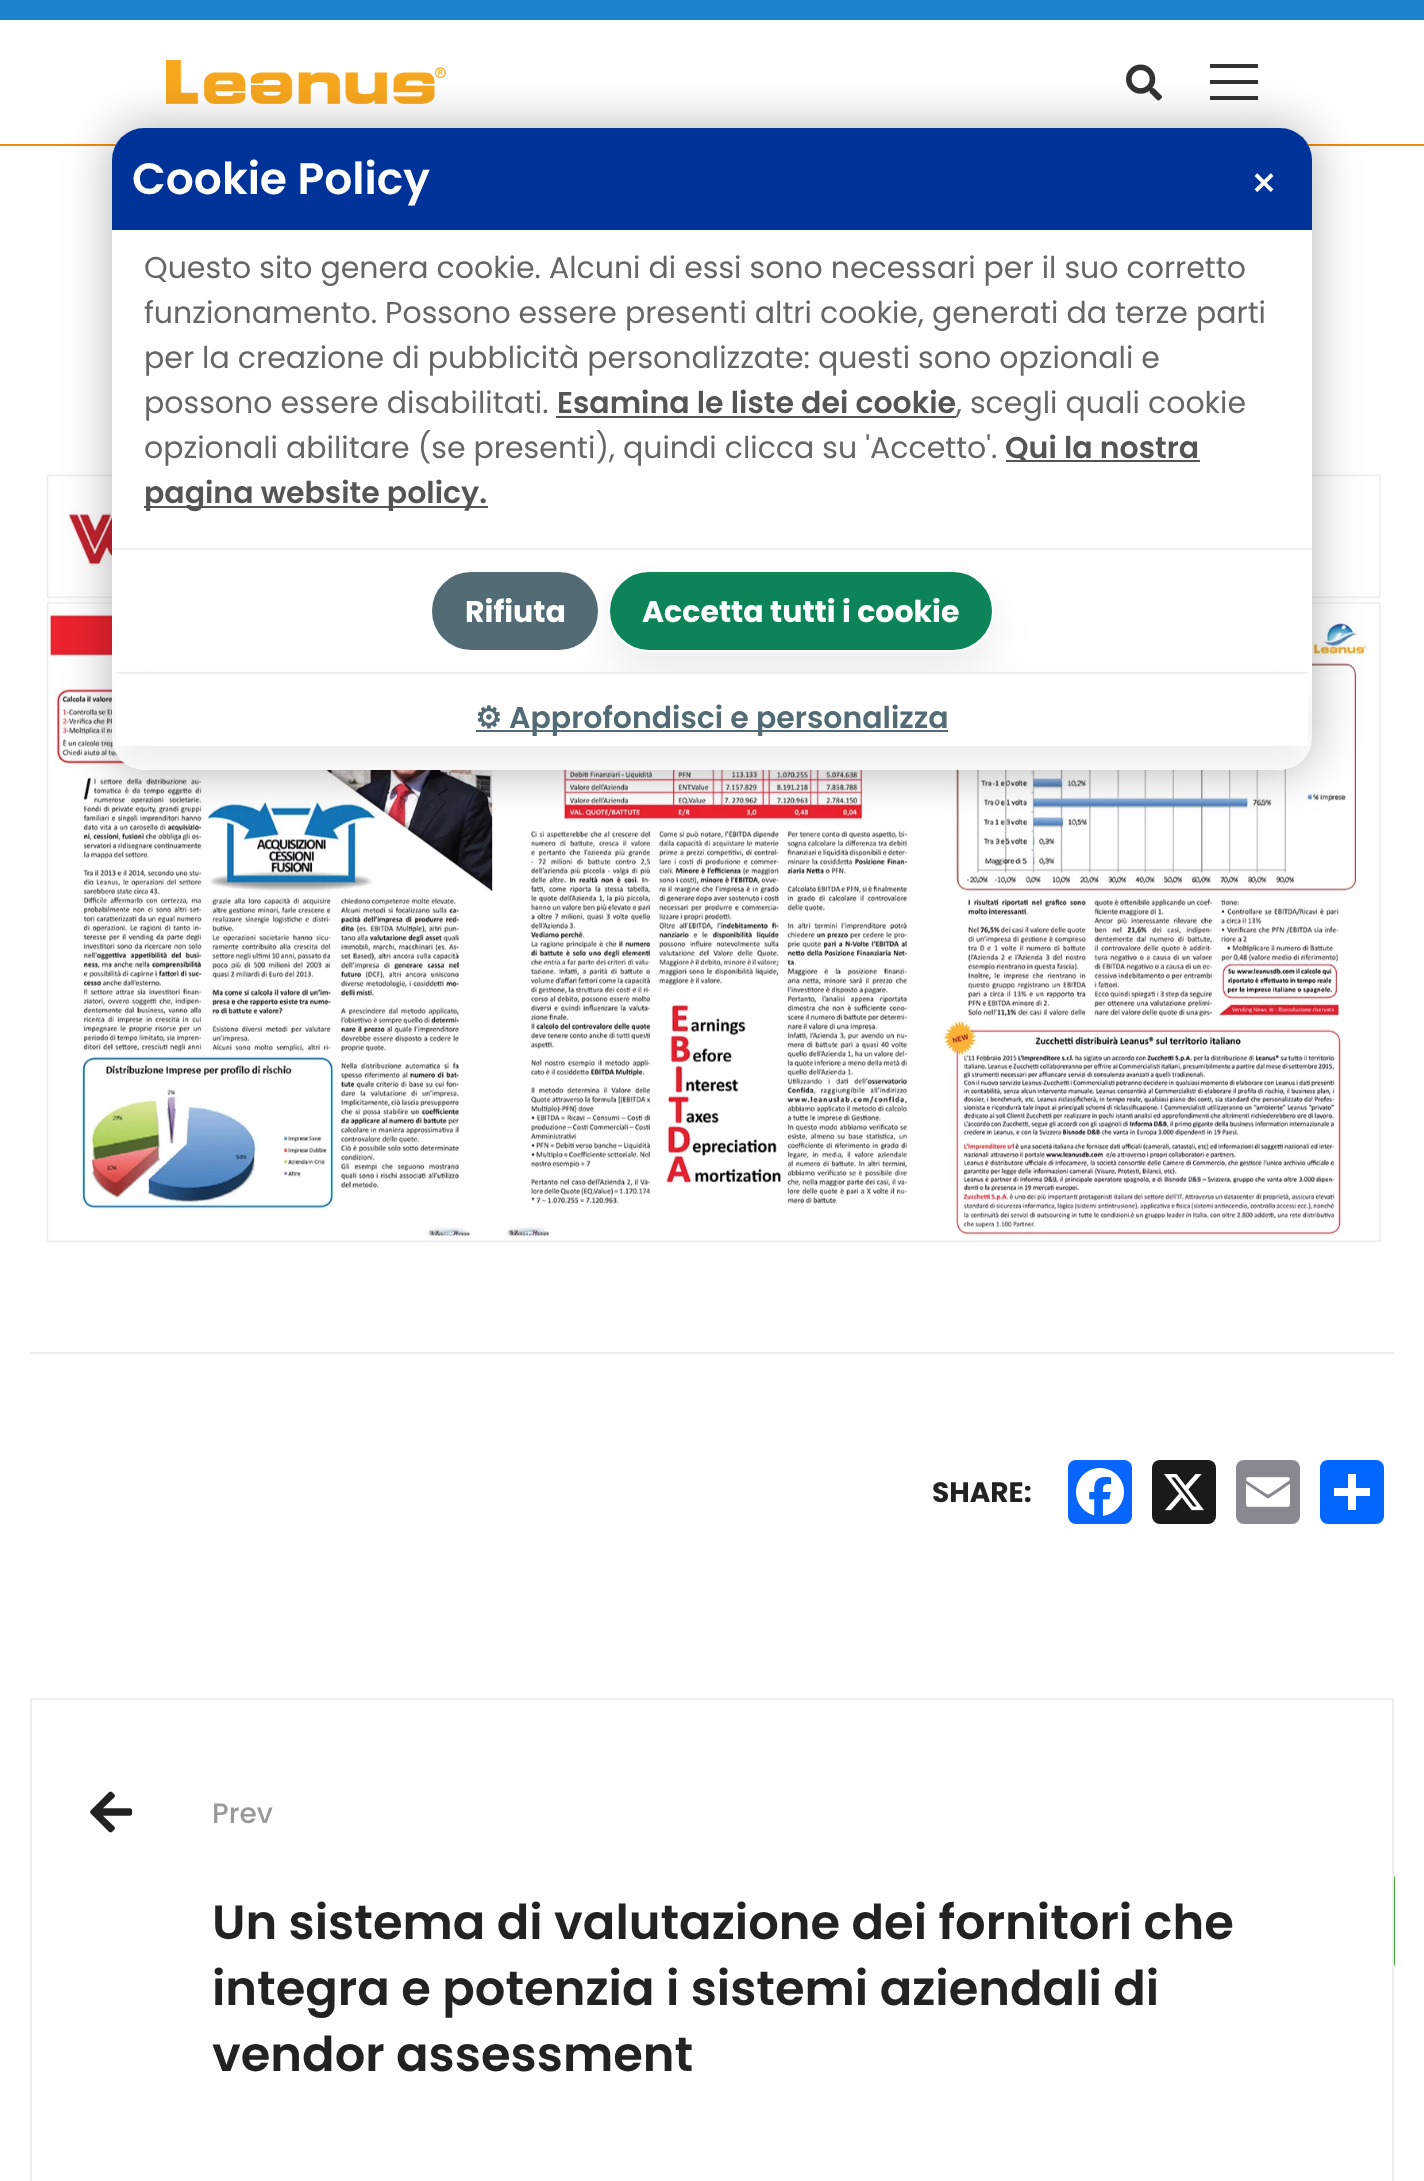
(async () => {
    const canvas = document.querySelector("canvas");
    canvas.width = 1424;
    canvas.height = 2181;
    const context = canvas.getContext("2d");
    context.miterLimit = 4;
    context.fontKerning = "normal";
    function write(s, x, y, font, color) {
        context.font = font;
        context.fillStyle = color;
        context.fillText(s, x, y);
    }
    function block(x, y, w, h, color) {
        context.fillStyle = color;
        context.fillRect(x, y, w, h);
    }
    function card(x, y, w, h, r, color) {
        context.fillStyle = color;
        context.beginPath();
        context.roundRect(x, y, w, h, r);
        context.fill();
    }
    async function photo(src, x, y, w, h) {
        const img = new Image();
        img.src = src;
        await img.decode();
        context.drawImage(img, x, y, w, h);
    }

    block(0, 0, 1424, 2181, "rgb(255, 255, 255)");
    block(0, 144, 1424, 2, "rgb(239, 142, 8)");
    await photo("media/1.png", 166, 60, 280, 44);
    await photo("media/2.png", 1126, 64, 36, 37);
    block(1210, 80, 48, 4, "rgb(51, 51, 51)");
    block(1210, 64, 48, 4, "rgb(51, 51, 51)");
    block(1210, 96, 48, 4, "rgb(51, 51, 51)");
    await photo("media/3.png", 46, 474, 1335, 769);
    context.fillStyle = "rgba(0, 0, 0, 0.3)";
    context.filter = "blur(24px)";
    context.beginPath();
    context.roundRect(112, 128, 1200, 642, 32);
    context.fill();
    context.filter = "none";
    card(112, 128, 1200, 642, 32, "rgb(255, 255, 255)");
    context.fillStyle = "rgb(0, 51, 153)";
    context.beginPath();
    context.roundRect(112, 128, 1200, 102, [32, 32, 0, 0]);
    context.fill();
    write("Cookie Policy", 132, 194, "600 44px Poppins", "rgb(255, 255, 255)");
    write("✕", 1251, 194, "bold 30px DejaVu Sans", "rgb(255, 255, 255)");
    write("Questo sito genera cookie. Alcuni di essi sono necessari per il suo corretto", 144, 278, "30px Poppins", "rgb(102, 102, 102)");
    write("funzionamento. Possono essere presenti altri cookie, generati da terze parti", 144, 323, "30px Poppins", "rgb(102, 102, 102)");
    write("per la creazione di pubblicità personalizzate: questi sono opzionali e", 144, 368, "30px Poppins", "rgb(102, 102, 102)");
    write("possono essere disabilitati.", 144, 413, "30px Poppins", "rgb(102, 102, 102)");
    write("Esamina le liste dei cookie", 557, 413, "600 30px Poppins", "rgb(85, 85, 85)");
    block(556, 416, 400, 2, "rgb(85, 85, 85)");
    write(", scegli quali cookie", 956, 413, "30px Poppins", "rgb(102, 102, 102)");
    write("opzionali abilitare (se presenti), quindi clicca su 'Accetto'.", 144, 458, "30px Poppins", "rgb(102, 102, 102)");
    block(1006, 460, 194, 2, "rgb(85, 85, 85)");
    write("Qui la nostra", 1005, 458, "600 30px Poppins", "rgb(85, 85, 85)");
    block(144, 506, 344, 2, "rgb(85, 85, 85)");
    write("pagina website policy.", 144, 503, "600 30px Poppins", "rgb(85, 85, 85)");
    block(112, 548, 1200, 2, "rgb(238, 238, 238)");
    context.fillStyle = "rgba(0, 0, 0, 0.07)";
    context.filter = "blur(20px)";
    context.beginPath();
    context.roundRect(608, 590, 386, 82, 41);
    context.fill();
    context.filter = "none";
    context.fillStyle = "rgb(82, 107, 117)";
    context.beginPath();
    context.roundRect(431, 571, 168, 80, 40);
    context.fill();
    context.strokeStyle = "rgb(255, 255, 255)";
    context.lineWidth = 2;
    context.stroke();
    write("Rifiuta", 465, 622, "bold 30px Poppins", "rgb(255, 255, 255)");
    context.fillStyle = "rgb(12, 132, 88)";
    context.beginPath();
    context.roundRect(609, 571, 384, 80, 40);
    context.fill();
    context.stroke();
    write("Accetta tutti i cookie", 642, 622, "bold 30px Poppins", "rgb(255, 255, 255)");
    context.save();
    context.beginPath();
    context.roundRect(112, 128, 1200, 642, 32);
    context.clip();
    context.fillStyle = "rgba(0, 0, 0, 0.07)";
    context.filter = "blur(20px)";
    context.beginPath();
    context.rect(116, 692, 1192, 74);
    context.fill();
    context.filter = "none";
    context.restore();
    block(116, 674, 1192, 72, "rgb(255, 255, 255)");
    block(116, 672, 1192, 2, "rgb(238, 238, 238)");
    write("⚙", 475, 728, "bold 30px DejaVu Sans", "rgb(82, 107, 117)");
    block(476, 730, 472, 2, "rgb(82, 107, 117)");
    write("Approfondisci e personalizza", 509, 728, "600 30px Poppins", "rgb(82, 107, 117)");
    block(0, 0, 1424, 20, "rgb(26, 132, 208)");
    block(30, 1352, 1364, 2, "rgb(238, 238, 238)");
    write("SHARE:", 932, 1502, "bold 28px Poppins", "rgb(34, 34, 34)");
    card(1068, 1460, 64, 64, 8, "rgb(8, 102, 255)");
    await photo("media/4.png", 1076, 1468, 48, 48);
    card(1152, 1460, 64, 64, 8, "rgb(26, 26, 26)");
    await photo("media/5.png", 1164, 1474, 40, 37);
    card(1236, 1460, 64, 64, 8, "rgb(136, 137, 144)");
    await photo("media/6.png", 1246, 1477, 44, 30);
    card(1320, 1460, 64, 64, 8, "rgb(1, 102, 255)");
    block(1348, 1474, 8, 36, "rgb(255, 255, 255)");
    block(1334, 1488, 36, 8, "rgb(255, 255, 255)");
    context.strokeStyle = "rgb(238, 238, 238)";
    context.strokeRect(31, 1699, 1362, 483);
    await photo("media/7.png", 90, 1791, 43, 42);
    write("Prev", 212, 1823, "500 28px Poppins", "rgb(153, 153, 153)");
    write("Un sistema di valutazione dei fornitori che", 212, 1939, "600 48px Poppins", "rgb(34, 34, 34)");
    write("integra e potenzia i sistemi aziendali di", 212, 2005, "600 48px Poppins", "rgb(34, 34, 34)");
    write("vendor assessment", 212, 2071, "600 48px Poppins", "rgb(34, 34, 34)");
    await photo("media/8.png", 1394, 1875, 1, 92);
})();
